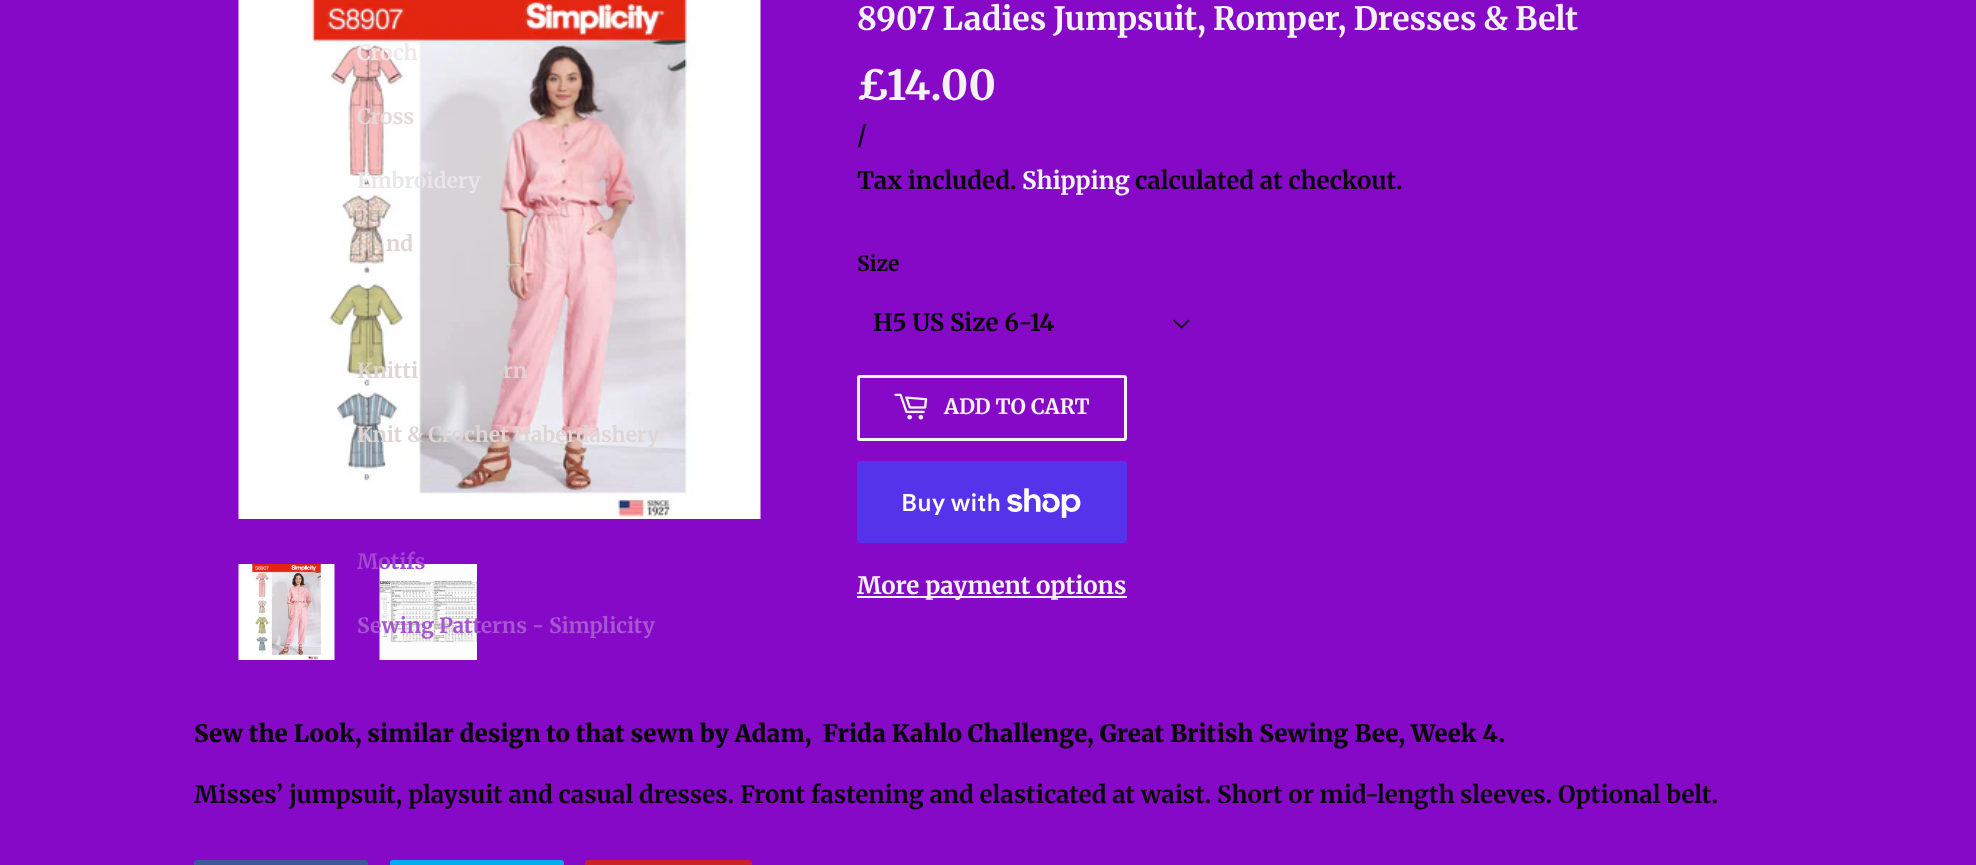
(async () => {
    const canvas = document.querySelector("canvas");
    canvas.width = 1976;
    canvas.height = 865;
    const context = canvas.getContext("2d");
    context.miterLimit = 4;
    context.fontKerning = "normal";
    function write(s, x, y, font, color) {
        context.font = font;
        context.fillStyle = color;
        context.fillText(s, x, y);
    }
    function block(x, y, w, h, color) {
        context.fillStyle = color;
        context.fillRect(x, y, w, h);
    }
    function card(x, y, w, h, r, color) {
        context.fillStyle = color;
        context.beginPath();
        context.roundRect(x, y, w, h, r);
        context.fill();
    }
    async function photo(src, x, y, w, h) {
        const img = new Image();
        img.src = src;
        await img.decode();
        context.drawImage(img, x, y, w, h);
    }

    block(0, 0, 1976, 865, "rgb(133, 9, 198)");
    await photo("media/1.png", 238, 0, 523, 519);
    await photo("media/2.png", 238, 564, 97, 96);
    await photo("media/3.png", 379, 564, 98, 96);
    context.wordSpacing = "-0.5px";
    write("8907 Ladies Jumpsuit, Romper, Dresses & Belt", 857, 30, "bold 32px Merriweather", "rgb(243, 243, 243)");
    context.wordSpacing = "0px";
    write("£14.00", 857, 100, "bold 41.5px Merriweather", "rgb(243, 243, 243)");
    write("/", 857, 143, "bold 24px Merriweather", "rgb(8, 8, 8)");
    write("Tax included.", 857, 189, "bold 24px Merriweather", "rgb(8, 8, 8)");
    write("Shipping", 1022, 189, "bold 24px Merriweather", "rgb(243, 243, 243)");
    write("calculated at checkout.", 1135, 189, "bold 24px Merriweather", "rgb(8, 8, 8)");
    write("Size", 857, 271, "bold 21px Merriweather", "rgb(8, 8, 8)");
    await photo("media/4.png", 1173, 319, 17, 10);
    write("H5 US Size 6-14", 873, 331, "bold 24px Merriweather", "rgb(8, 8, 8)");
    context.beginPath();
    context.roundRect(858.5, 376.5, 267, 63, 1.5);
    context.strokeStyle = "rgb(243, 243, 243)";
    context.lineWidth = 3;
    context.stroke();
    await photo("media/5.png", 894, 393, 34, 27);
    write("ADD TO CART", 944, 414, "bold 21px Merriweather", "rgb(243, 243, 243)");
    card(857, 461, 270, 82, 3, "rgb(84, 51, 235)");
    write("Buy with", 901, 511, "600 24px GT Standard", "rgb(255, 255, 255)");
    await photo("media/6.png", 1007, 488, 74, 30);
    block(857, 596, 270, 2, "rgb(243, 243, 243)");
    write("More payment options", 857, 594, "bold 24px Merriweather", "rgb(243, 243, 243)");
    write("Sew the Look, similar design to that sewn by Adam,  Frida Kahlo Challenge, Great British Sewing Bee, Week 4.", 194, 742, "900 24px Merriweather", "rgb(8, 8, 8)");
    write("Misses’ jumpsuit, playsuit and casual dresses. Front fastening and elasticated at waist. Short or mid-length sleeves. Optional belt.", 194, 803, "bold 24px Merriweather", "rgb(8, 8, 8)");
    card(194, 860, 174, 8, 3, "rgb(59, 89, 152)");
    card(390, 860, 174, 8, 3, "rgb(0, 172, 237)");
    card(585, 860, 167, 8, 3, "rgb(203, 32, 39)");
    write("Croch", 357, 60, "bold 21px Merriweather", "rgb(239, 231, 234)");
    write("Cross", 357, 124, "bold 21px Merriweather", "rgb(230, 217, 219)");
    write("Embroidery", 357, 188, "bold 21px Merriweather", "rgb(233, 230, 232)");
    write("nd", 386, 251, "bold 21px Merriweather", "rgb(223, 213, 212)");
    write("Knitti", 357, 378, "bold 21px Merriweather", "rgb(223, 213, 212)");
    write("rn", 503, 378, "bold 21px Merriweather", "rgb(223, 213, 212)");
    write("Knit & Crochet Haberdashery", 357, 442, "bold 21px Merriweather", "rgb(223, 213, 212)");
    write("Motifs", 357, 569, "bold 21px Merriweather", "rgb(164, 71, 212)");
    write("Sewing Patterns - Simplicity", 357, 633, "bold 21px Merriweather", "rgb(167, 86, 210)");
})();
